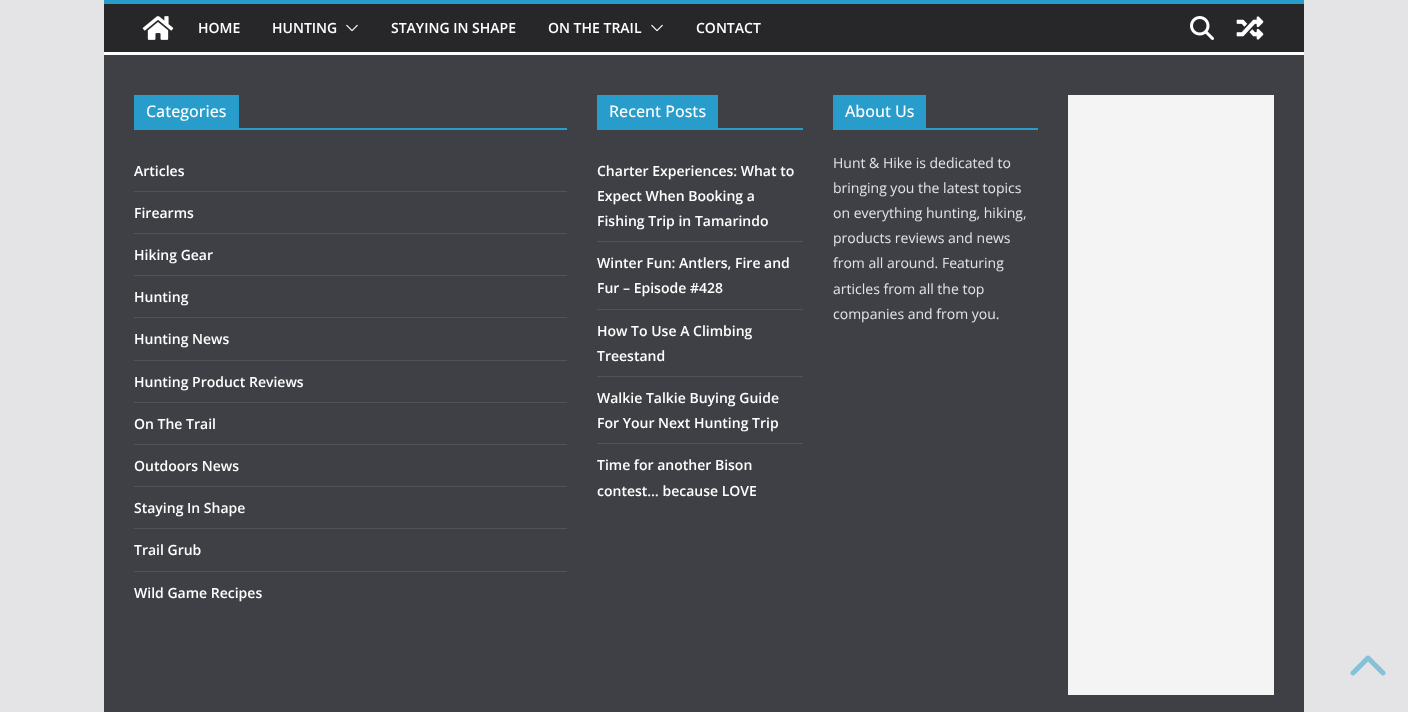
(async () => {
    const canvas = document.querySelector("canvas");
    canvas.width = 1408;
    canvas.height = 712;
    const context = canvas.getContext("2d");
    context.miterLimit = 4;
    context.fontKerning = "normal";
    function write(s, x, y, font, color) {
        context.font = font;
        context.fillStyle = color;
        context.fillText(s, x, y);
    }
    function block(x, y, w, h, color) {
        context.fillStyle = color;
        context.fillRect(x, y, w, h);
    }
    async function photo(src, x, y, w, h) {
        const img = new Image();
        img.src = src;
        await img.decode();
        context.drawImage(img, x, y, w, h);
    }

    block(0, 0, 1408, 712, "rgb(228, 228, 231)");
    block(104, 4, 1200, 48, "rgb(39, 39, 42)");
    block(104, 0, 1200, 4, "rgb(40, 157, 204)");
    await photo("media/1.png", 142, 16, 32, 24);
    write("HOME", 198, 33, "600 14px Open Sans", "rgb(255, 255, 255)");
    write("HUNTING", 272, 33, "600 14px Open Sans", "rgb(255, 255, 255)");
    await photo("media/2.png", 346, 24, 12, 8);
    write("STAYING IN SHAPE", 391, 33, "600 14px Open Sans", "rgb(255, 255, 255)");
    write("ON THE TRAIL", 548, 33, "600 14px Open Sans", "rgb(255, 255, 255)");
    await photo("media/2.png", 651, 24, 12, 8);
    write("CONTACT", 696, 33, "600 14px Open Sans", "rgb(255, 255, 255)");
    await photo("media/3.png", 1190, 16, 24, 24);
    await photo("media/4.png", 1236, 16, 28, 24);
    block(104, 52, 1200, 3, "rgb(255, 255, 255)");
    block(104, 55, 1200, 657, "rgb(63, 63, 70)");
    block(134, 128, 433, 2, "rgb(40, 157, 204)");
    block(134, 95, 105, 33, "rgb(40, 157, 204)");
    write("Categories", 146, 117, "500 16px Open Sans", "rgb(255, 255, 255)");
    block(134, 191, 433, 1, "rgb(82, 82, 91)");
    write("Articles", 134, 176, "600 14px Open Sans", "rgb(255, 255, 255)");
    block(134, 233, 433, 1, "rgb(82, 82, 91)");
    write("Firearms", 134, 218, "600 14px Open Sans", "rgb(255, 255, 255)");
    block(134, 275, 433, 1, "rgb(82, 82, 91)");
    write("Hiking Gear", 134, 260, "600 14px Open Sans", "rgb(255, 255, 255)");
    block(134, 317, 433, 1, "rgb(82, 82, 91)");
    write("Hunting", 134, 302, "600 14px Open Sans", "rgb(255, 255, 255)");
    block(134, 360, 433, 1, "rgb(82, 82, 91)");
    write("Hunting News", 134, 344, "600 14px Open Sans", "rgb(255, 255, 255)");
    block(134, 402, 433, 1, "rgb(82, 82, 91)");
    write("Hunting Product Reviews", 134, 387, "600 14px Open Sans", "rgb(255, 255, 255)");
    block(134, 444, 433, 1, "rgb(82, 82, 91)");
    write("On The Trail", 134, 429, "600 14px Open Sans", "rgb(255, 255, 255)");
    block(134, 486, 433, 1, "rgb(82, 82, 91)");
    write("Outdoors News", 134, 471, "600 14px Open Sans", "rgb(255, 255, 255)");
    block(134, 528, 433, 1, "rgb(82, 82, 91)");
    write("Staying In Shape", 134, 513, "600 14px Open Sans", "rgb(255, 255, 255)");
    block(134, 571, 433, 1, "rgb(82, 82, 91)");
    write("Trail Grub", 134, 555, "600 14px Open Sans", "rgb(255, 255, 255)");
    write("Wild Game Recipes", 134, 598, "600 14px Open Sans", "rgb(255, 255, 255)");
    block(597, 128, 206, 2, "rgb(40, 157, 204)");
    block(597, 95, 121, 33, "rgb(40, 157, 204)");
    write("Recent Posts", 609, 117, "500 16px Open Sans", "rgb(255, 255, 255)");
    block(597, 241, 206, 1, "rgb(82, 82, 91)");
    write("Charter Experiences: What to", 597, 176, "600 14px Open Sans", "rgb(255, 255, 255)");
    write("Expect When Booking a", 597, 201, "600 14px Open Sans", "rgb(255, 255, 255)");
    write("Fishing Trip in Tamarindo", 597, 226, "600 14px Open Sans", "rgb(255, 255, 255)");
    block(597, 309, 206, 1, "rgb(82, 82, 91)");
    write("Winter Fun: Antlers, Fire and", 597, 268, "600 14px Open Sans", "rgb(255, 255, 255)");
    write("Fur – Episode #428", 597, 293, "600 14px Open Sans", "rgb(255, 255, 255)");
    block(597, 376, 206, 1, "rgb(82, 82, 91)");
    write("How To Use A Climbing", 597, 336, "600 14px Open Sans", "rgb(255, 255, 255)");
    write("Treestand", 597, 361, "600 14px Open Sans", "rgb(255, 255, 255)");
    block(597, 443, 206, 1, "rgb(82, 82, 91)");
    write("Walkie Talkie Buying Guide", 597, 403, "600 14px Open Sans", "rgb(255, 255, 255)");
    write("For Your Next Hunting Trip", 597, 428, "600 14px Open Sans", "rgb(255, 255, 255)");
    write("Time for another Bison", 597, 470, "600 14px Open Sans", "rgb(255, 255, 255)");
    write("contest… because LOVE", 597, 496, "600 14px Open Sans", "rgb(255, 255, 255)");
    block(833, 128, 205, 2, "rgb(40, 157, 204)");
    block(833, 95, 93, 33, "rgb(40, 157, 204)");
    write("About Us", 845, 117, "500 16px Open Sans", "rgb(255, 255, 255)");
    write("Hunt & Hike is dedicated to", 833, 168, "14px Open Sans", "rgb(228, 228, 231)");
    write("bringing you the latest topics", 833, 193, "14px Open Sans", "rgb(228, 228, 231)");
    write("on everything hunting, hiking,", 833, 218, "14px Open Sans", "rgb(228, 228, 231)");
    write("products reviews and news", 833, 243, "14px Open Sans", "rgb(228, 228, 231)");
    write("from all around. Featuring", 833, 268, "14px Open Sans", "rgb(228, 228, 231)");
    write("articles from all the top", 833, 294, "14px Open Sans", "rgb(228, 228, 231)");
    write("companies and from you.", 833, 319, "14px Open Sans", "rgb(228, 228, 231)");
    block(1068, 95, 206, 600, "rgb(244, 244, 245)");
    await photo("media/5.png", 1350, 655, 36, 21);
})();
